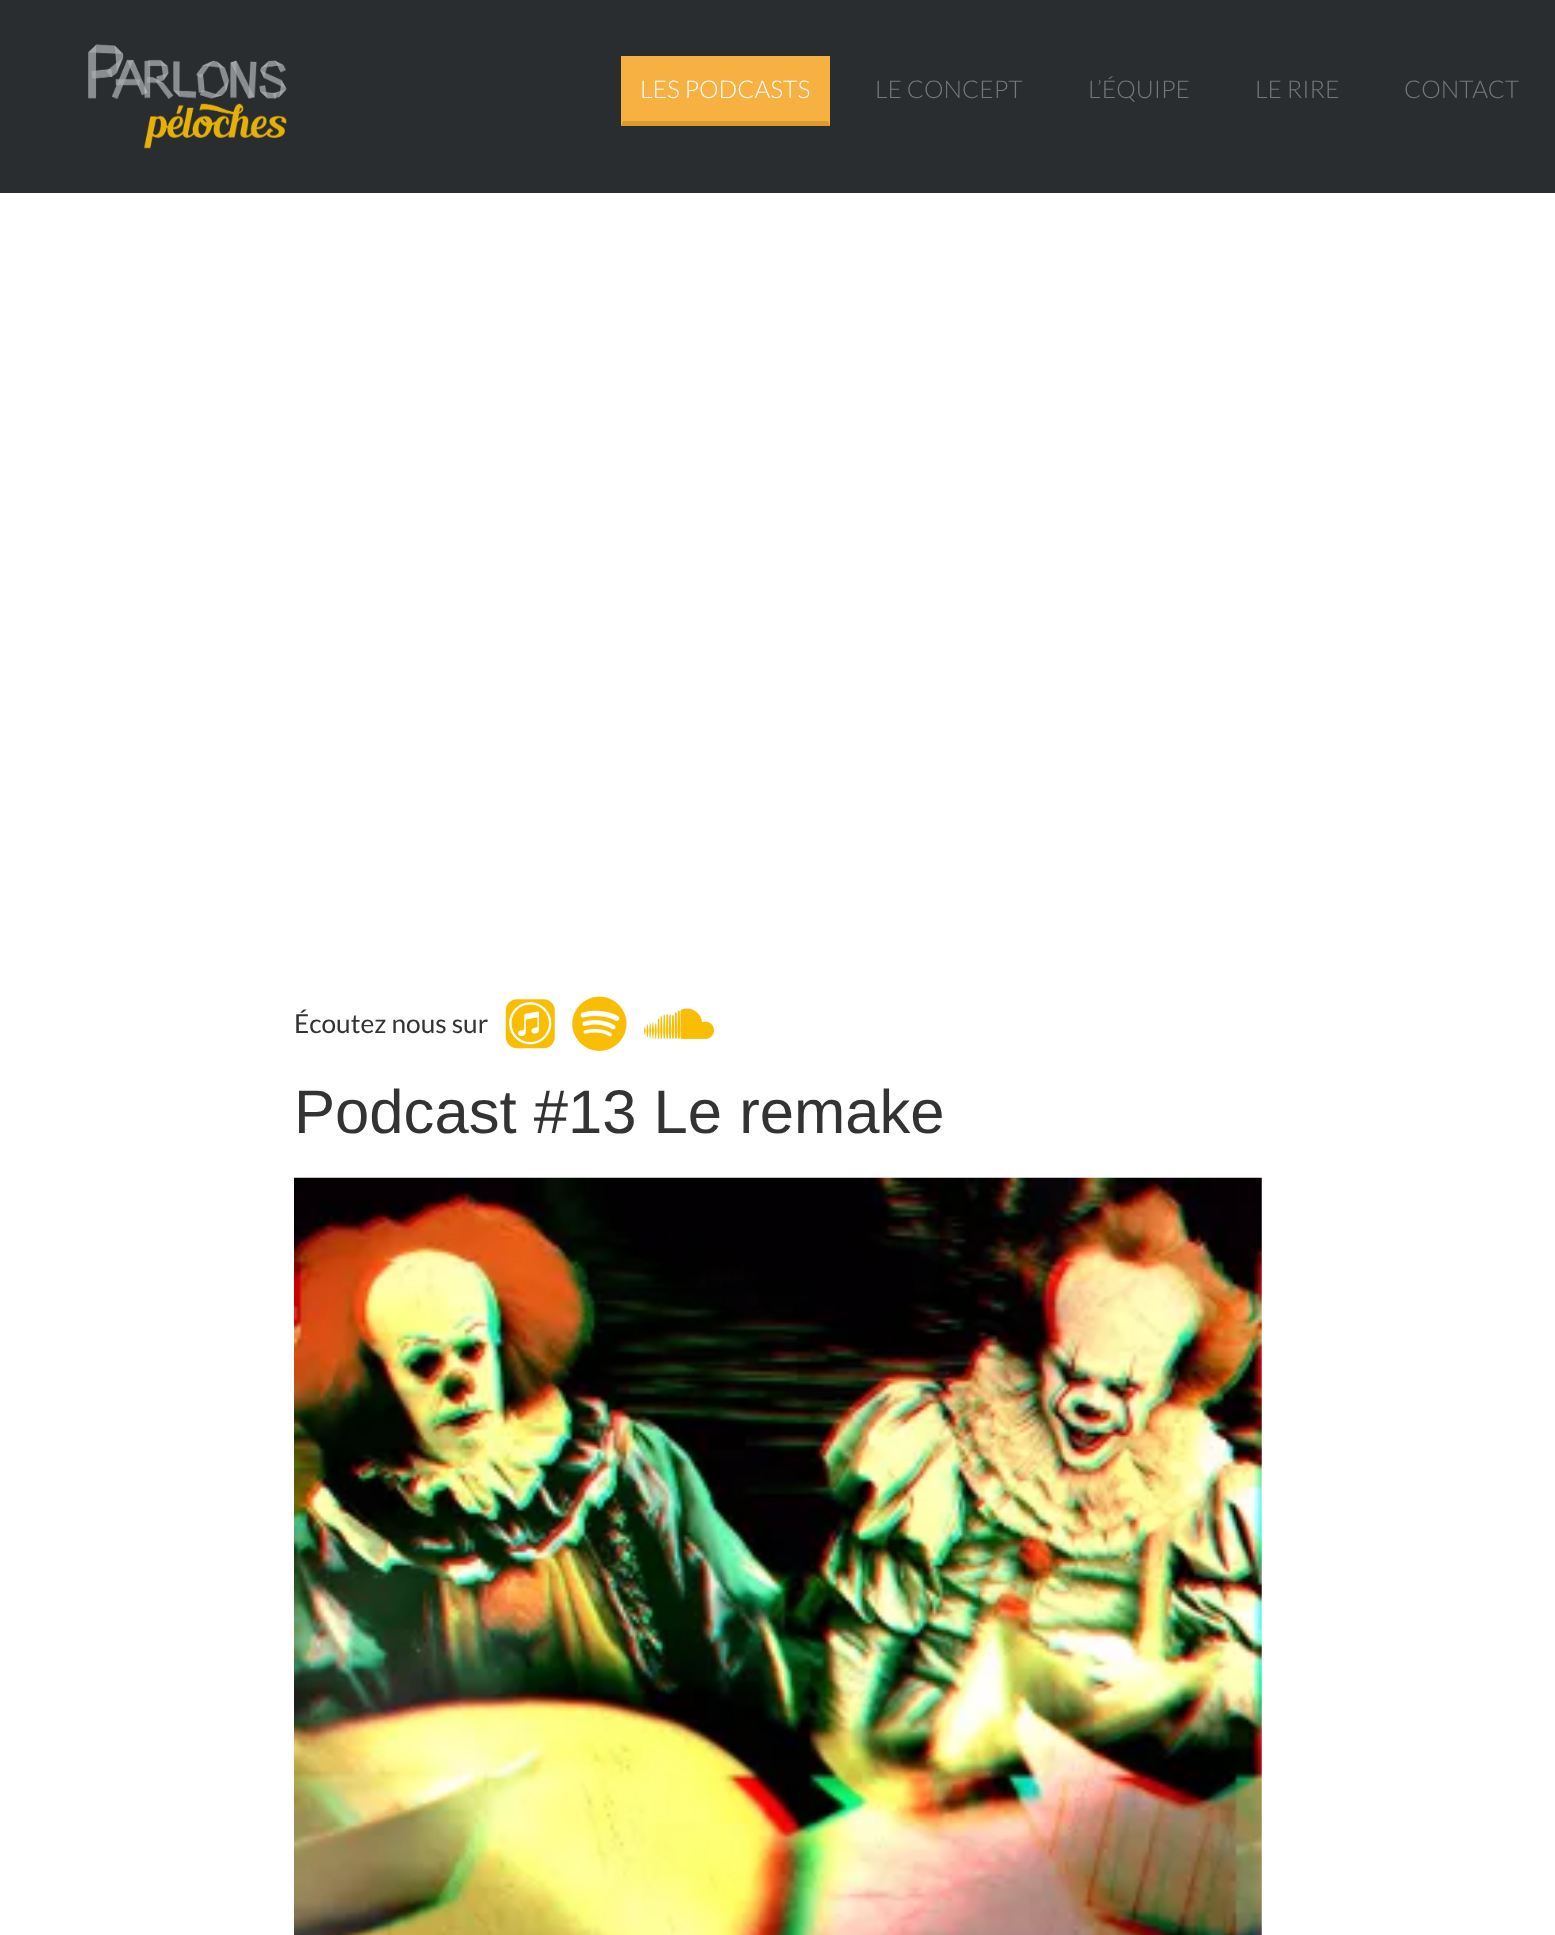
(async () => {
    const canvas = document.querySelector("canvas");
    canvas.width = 1555;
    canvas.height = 1935;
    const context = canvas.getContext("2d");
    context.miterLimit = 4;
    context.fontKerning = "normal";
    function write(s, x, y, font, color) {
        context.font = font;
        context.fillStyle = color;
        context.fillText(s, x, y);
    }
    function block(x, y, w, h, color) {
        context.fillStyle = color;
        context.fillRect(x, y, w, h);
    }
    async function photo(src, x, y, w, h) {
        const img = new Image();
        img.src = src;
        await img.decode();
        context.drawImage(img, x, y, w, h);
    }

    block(0, 0, 1555, 1935, "rgb(255, 255, 255)");
    block(0, 0, 1555, 193, "rgb(41, 45, 48)");
    await photo("media/1.png", 88, 44, 199, 105);
    block(621, 56, 209, 70, "rgb(247, 177, 66)");
    context.fillStyle = "rgb(220, 153, 48)";
    context.beginPath();
    context.moveTo(830, 126);
    context.lineTo(621, 126);
    context.lineTo(623, 121);
    context.lineTo(828, 121);
    context.closePath();
    context.fill();
    write("LES PODCASTS", 640, 98, "300 24.5px Lato", "rgb(255, 255, 255)");
    write("LE CONCEPT", 875, 98, "300 24.5px Lato", "rgb(119, 119, 119)");
    write("L’ÉQUIPE", 1088, 98, "300 24.5px Lato", "rgb(119, 119, 119)");
    write("LE RIRE", 1255, 98, "300 24.5px Lato", "rgb(119, 119, 119)");
    write("CONTACT", 1404, 98, "300 24.5px Lato", "rgb(119, 119, 119)");
    write("Écoutez nous sur", 294, 1033, "26.25px Lato", "rgb(51, 51, 51)");
    await photo("media/2.png", 505, 999, 50, 50);
    await photo("media/3.png", 572, 996, 55, 55);
    await photo("media/4.png", 644, 1008, 70, 31);
    write("Podcast #13 Le remake", 294, 1133, "61.6px Liberation Sans", "rgb(51, 51, 51)");
    await photo("media/5.png", 294, 1177, 968, 758);
})();
